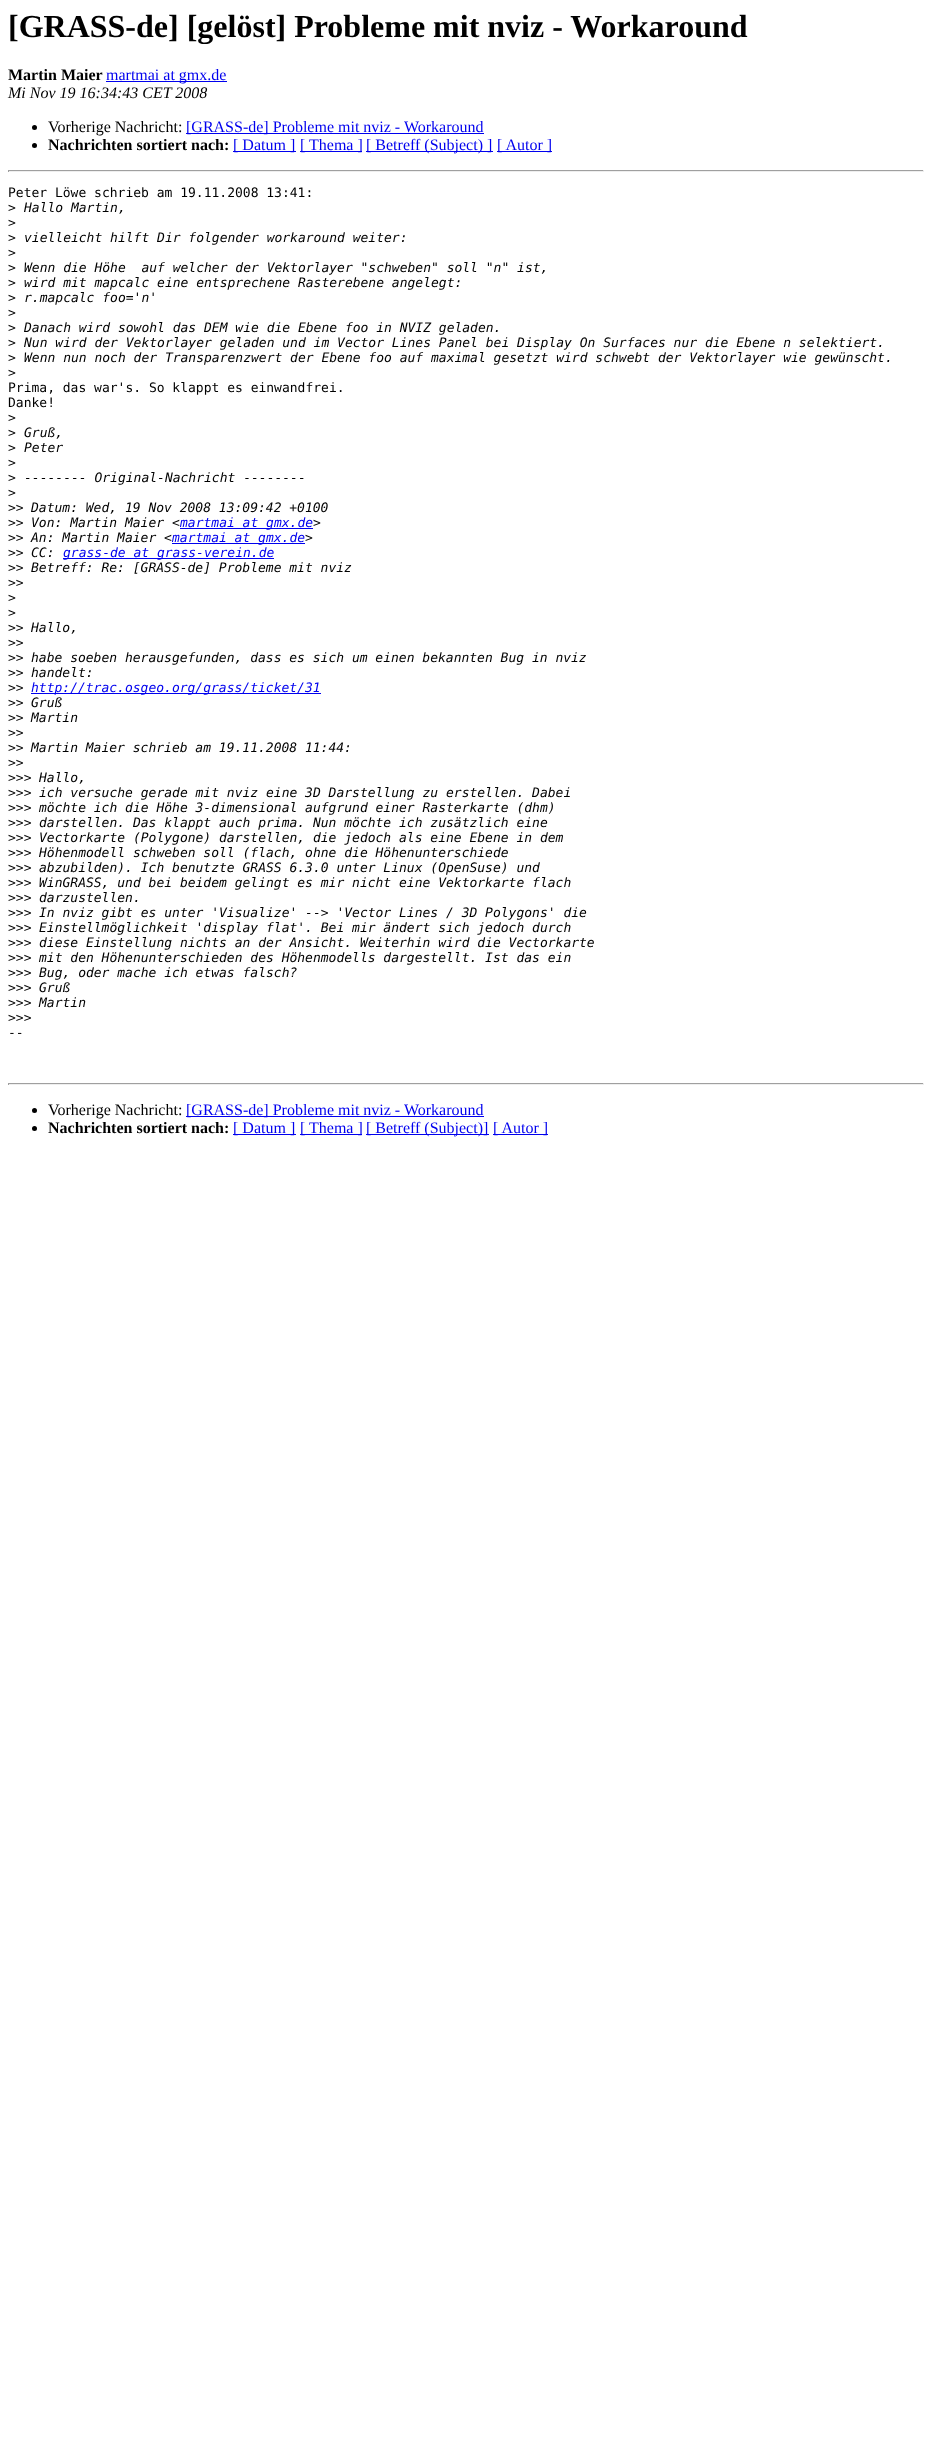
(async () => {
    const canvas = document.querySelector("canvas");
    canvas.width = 932;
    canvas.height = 2440;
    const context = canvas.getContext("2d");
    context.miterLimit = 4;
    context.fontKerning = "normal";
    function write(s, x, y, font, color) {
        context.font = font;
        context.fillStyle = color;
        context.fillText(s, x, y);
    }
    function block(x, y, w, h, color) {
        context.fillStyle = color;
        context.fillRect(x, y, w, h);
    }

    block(0, 0, 932, 2440, "rgb(255, 255, 255)");
    write("[GRASS-de] [gelöst] Probleme mit nviz - Workaround", 8, 37, "bold 32px Liberation Serif", "rgb(0, 0, 0)");
    write("Martin Maier", 8, 80, "bold 16px Liberation Serif", "rgb(0, 0, 0)");
    block(106, 81, 121, 1, "rgb(0, 0, 238)");
    write("martmai at gmx.de", 106, 80, "16px Liberation Serif", "rgb(0, 0, 238)");
    write("Mi Nov 19 16:34:43 CET 2008", 8, 98, "italic 16px Liberation Serif", "rgb(0, 0, 0)");
    context.beginPath();
    context.arc(34.5, 127.5, 2.5, 0, Math.PI * 2);
    context.fill();
    write("Vorherige Nachricht:", 48, 132, "16px Liberation Serif", "rgb(0, 0, 0)");
    block(186, 133, 298, 1, "rgb(0, 0, 238)");
    write("[GRASS-de] Probleme mit nviz - Workaround", 186, 132, "16px Liberation Serif", "rgb(0, 0, 238)");
    context.fillStyle = "rgb(0, 0, 0)";
    context.beginPath();
    context.arc(34.5, 145.5, 2.5, 0, Math.PI * 2);
    context.fill();
    write("Nachrichten sortiert nach:", 48, 150, "bold 16px Liberation Serif", "rgb(0, 0, 0)");
    block(233, 151, 63, 1, "rgb(0, 0, 238)");
    write("[ Datum ]", 233, 150, "16px Liberation Serif", "rgb(0, 0, 238)");
    block(300, 151, 62, 1, "rgb(0, 0, 238)");
    write("[ Thema ]", 300, 150, "16px Liberation Serif", "rgb(0, 0, 238)");
    block(366, 151, 127, 1, "rgb(0, 0, 238)");
    write("[ Betreff (Subject) ]", 366, 150, "16px Liberation Serif", "rgb(0, 0, 238)");
    block(497, 151, 55, 1, "rgb(0, 0, 238)");
    write("[ Autor ]", 497, 150, "16px Liberation Serif", "rgb(0, 0, 238)");
    block(8, 170, 916, 1, "rgb(159, 159, 159)");
    block(923, 170, 1, 2, "rgb(238, 238, 238)");
    block(8, 171, 916, 1, "rgb(238, 238, 238)");
    block(8, 170, 1, 2, "rgb(159, 159, 159)");
    write("Peter Löwe schrieb am 19.11.2008 13:41:", 8, 197, "13px DejaVu Sans Mono", "rgb(0, 0, 0)");
    write(">", 8, 212, "13px DejaVu Sans Mono", "rgb(0, 0, 0)");
    write("Hallo Martin,", 24, 212, "italic 13px DejaVu Sans Mono", "rgb(0, 0, 0)");
    write(">", 8, 227, "13px DejaVu Sans Mono", "rgb(0, 0, 0)");
    write(">", 8, 242, "13px DejaVu Sans Mono", "rgb(0, 0, 0)");
    write("vielleicht hilft Dir folgender workaround weiter:", 24, 242, "italic 13px DejaVu Sans Mono", "rgb(0, 0, 0)");
    write(">", 8, 257, "13px DejaVu Sans Mono", "rgb(0, 0, 0)");
    write(">", 8, 272, "13px DejaVu Sans Mono", "rgb(0, 0, 0)");
    write("Wenn die Höhe  auf welcher der Vektorlayer \"schweben\" soll \"n\" ist,", 24, 272, "italic 13px DejaVu Sans Mono", "rgb(0, 0, 0)");
    write(">", 8, 287, "13px DejaVu Sans Mono", "rgb(0, 0, 0)");
    write("wird mit mapcalc eine entsprechene Rasterebene angelegt:", 24, 287, "italic 13px DejaVu Sans Mono", "rgb(0, 0, 0)");
    write(">", 8, 302, "13px DejaVu Sans Mono", "rgb(0, 0, 0)");
    write("r.mapcalc foo='n'", 24, 302, "italic 13px DejaVu Sans Mono", "rgb(0, 0, 0)");
    write(">", 8, 317, "13px DejaVu Sans Mono", "rgb(0, 0, 0)");
    write(">", 8, 332, "13px DejaVu Sans Mono", "rgb(0, 0, 0)");
    write("Danach wird sowohl das DEM wie die Ebene foo in NVIZ geladen.", 24, 332, "italic 13px DejaVu Sans Mono", "rgb(0, 0, 0)");
    write(">", 8, 347, "13px DejaVu Sans Mono", "rgb(0, 0, 0)");
    write("Nun wird der Vektorlayer geladen und im Vector Lines Panel bei Display On Surfaces nur die Ebene n selektiert.", 24, 347, "italic 13px DejaVu Sans Mono", "rgb(0, 0, 0)");
    write(">", 8, 362, "13px DejaVu Sans Mono", "rgb(0, 0, 0)");
    write("Wenn nun noch der Transparenzwert der Ebene foo auf maximal gesetzt wird schwebt der Vektorlayer wie gewünscht.", 24, 362, "italic 13px DejaVu Sans Mono", "rgb(0, 0, 0)");
    write(">", 8, 377, "13px DejaVu Sans Mono", "rgb(0, 0, 0)");
    write("Prima, das war's. So klappt es einwandfrei.", 8, 392, "13px DejaVu Sans Mono", "rgb(0, 0, 0)");
    write("Danke!", 8, 407, "13px DejaVu Sans Mono", "rgb(0, 0, 0)");
    write(">", 8, 422, "13px DejaVu Sans Mono", "rgb(0, 0, 0)");
    write(">", 8, 437, "13px DejaVu Sans Mono", "rgb(0, 0, 0)");
    write("Gruß,", 24, 437, "italic 13px DejaVu Sans Mono", "rgb(0, 0, 0)");
    write(">", 8, 452, "13px DejaVu Sans Mono", "rgb(0, 0, 0)");
    write("Peter", 24, 452, "italic 13px DejaVu Sans Mono", "rgb(0, 0, 0)");
    write(">", 8, 467, "13px DejaVu Sans Mono", "rgb(0, 0, 0)");
    write(">", 8, 482, "13px DejaVu Sans Mono", "rgb(0, 0, 0)");
    write("-------- Original-Nachricht --------", 24, 482, "italic 13px DejaVu Sans Mono", "rgb(0, 0, 0)");
    write(">", 8, 497, "13px DejaVu Sans Mono", "rgb(0, 0, 0)");
    write(">>", 8, 512, "13px DejaVu Sans Mono", "rgb(0, 0, 0)");
    write("Datum: Wed, 19 Nov 2008 13:09:42 +0100", 31, 512, "italic 13px DejaVu Sans Mono", "rgb(0, 0, 0)");
    write(">>", 8, 527, "13px DejaVu Sans Mono", "rgb(0, 0, 0)");
    write("Von: Martin Maier <", 31, 527, "italic 13px DejaVu Sans Mono", "rgb(0, 0, 0)");
    block(180, 528, 133, 1, "rgb(0, 0, 238)");
    write("martmai at gmx.de", 180, 527, "italic 13px DejaVu Sans Mono", "rgb(0, 0, 238)");
    write(">", 313, 527, "italic 13px DejaVu Sans Mono", "rgb(0, 0, 0)");
    write(">>", 8, 542, "13px DejaVu Sans Mono", "rgb(0, 0, 0)");
    write("An: Martin Maier <", 31, 542, "italic 13px DejaVu Sans Mono", "rgb(0, 0, 0)");
    block(172, 543, 133, 1, "rgb(0, 0, 238)");
    write("martmai at gmx.de", 172, 542, "italic 13px DejaVu Sans Mono", "rgb(0, 0, 238)");
    write(">", 305, 542, "italic 13px DejaVu Sans Mono", "rgb(0, 0, 0)");
    write(">>", 8, 557, "13px DejaVu Sans Mono", "rgb(0, 0, 0)");
    write("CC:", 31, 557, "italic 13px DejaVu Sans Mono", "rgb(0, 0, 0)");
    block(63, 558, 211, 1, "rgb(0, 0, 238)");
    write("grass-de at grass-verein.de", 63, 557, "italic 13px DejaVu Sans Mono", "rgb(0, 0, 238)");
    write(">>", 8, 572, "13px DejaVu Sans Mono", "rgb(0, 0, 0)");
    write("Betreff: Re: [GRASS-de] Probleme mit nviz", 31, 572, "italic 13px DejaVu Sans Mono", "rgb(0, 0, 0)");
    write(">>", 8, 587, "13px DejaVu Sans Mono", "rgb(0, 0, 0)");
    write(">", 8, 602, "13px DejaVu Sans Mono", "rgb(0, 0, 0)");
    write(">", 8, 617, "13px DejaVu Sans Mono", "rgb(0, 0, 0)");
    write(">>", 8, 632, "13px DejaVu Sans Mono", "rgb(0, 0, 0)");
    write("Hallo,", 31, 632, "italic 13px DejaVu Sans Mono", "rgb(0, 0, 0)");
    write(">>", 8, 647, "13px DejaVu Sans Mono", "rgb(0, 0, 0)");
    write(">>", 8, 662, "13px DejaVu Sans Mono", "rgb(0, 0, 0)");
    write("habe soeben herausgefunden, dass es sich um einen bekannten Bug in nviz", 31, 662, "italic 13px DejaVu Sans Mono", "rgb(0, 0, 0)");
    write(">>", 8, 677, "13px DejaVu Sans Mono", "rgb(0, 0, 0)");
    write("handelt:", 31, 677, "italic 13px DejaVu Sans Mono", "rgb(0, 0, 0)");
    write(">>", 8, 692, "13px DejaVu Sans Mono", "rgb(0, 0, 0)");
    block(31, 693, 290, 1, "rgb(0, 0, 238)");
    write("http://trac.osgeo.org/grass/ticket/31", 31, 692, "italic 13px DejaVu Sans Mono", "rgb(0, 0, 238)");
    write(">>", 8, 707, "13px DejaVu Sans Mono", "rgb(0, 0, 0)");
    write("Gruß", 31, 707, "italic 13px DejaVu Sans Mono", "rgb(0, 0, 0)");
    write(">>", 8, 722, "13px DejaVu Sans Mono", "rgb(0, 0, 0)");
    write("Martin", 31, 722, "italic 13px DejaVu Sans Mono", "rgb(0, 0, 0)");
    write(">>", 8, 737, "13px DejaVu Sans Mono", "rgb(0, 0, 0)");
    write(">>", 8, 752, "13px DejaVu Sans Mono", "rgb(0, 0, 0)");
    write("Martin Maier schrieb am 19.11.2008 11:44:", 31, 752, "italic 13px DejaVu Sans Mono", "rgb(0, 0, 0)");
    write(">>", 8, 767, "13px DejaVu Sans Mono", "rgb(0, 0, 0)");
    write(">>>", 8, 782, "13px DejaVu Sans Mono", "rgb(0, 0, 0)");
    write("Hallo,", 39, 782, "italic 13px DejaVu Sans Mono", "rgb(0, 0, 0)");
    write(">>>", 8, 797, "13px DejaVu Sans Mono", "rgb(0, 0, 0)");
    write("ich versuche gerade mit nviz eine 3D Darstellung zu erstellen. Dabei", 39, 797, "italic 13px DejaVu Sans Mono", "rgb(0, 0, 0)");
    write(">>>", 8, 812, "13px DejaVu Sans Mono", "rgb(0, 0, 0)");
    write("möchte ich die Höhe 3-dimensional aufgrund einer Rasterkarte (dhm)", 39, 812, "italic 13px DejaVu Sans Mono", "rgb(0, 0, 0)");
    write(">>>", 8, 827, "13px DejaVu Sans Mono", "rgb(0, 0, 0)");
    write("darstellen. Das klappt auch prima. Nun möchte ich zusätzlich eine", 39, 827, "italic 13px DejaVu Sans Mono", "rgb(0, 0, 0)");
    write(">>>", 8, 842, "13px DejaVu Sans Mono", "rgb(0, 0, 0)");
    write("Vectorkarte (Polygone) darstellen, die jedoch als eine Ebene in dem", 39, 842, "italic 13px DejaVu Sans Mono", "rgb(0, 0, 0)");
    write(">>>", 8, 857, "13px DejaVu Sans Mono", "rgb(0, 0, 0)");
    write("Höhenmodell schweben soll (flach, ohne die Höhenunterschiede", 39, 857, "italic 13px DejaVu Sans Mono", "rgb(0, 0, 0)");
    write(">>>", 8, 872, "13px DejaVu Sans Mono", "rgb(0, 0, 0)");
    write("abzubilden). Ich benutzte GRASS 6.3.0 unter Linux (OpenSuse) und", 39, 872, "italic 13px DejaVu Sans Mono", "rgb(0, 0, 0)");
    write(">>>", 8, 887, "13px DejaVu Sans Mono", "rgb(0, 0, 0)");
    write("WinGRASS, und bei beidem gelingt es mir nicht eine Vektorkarte flach", 39, 887, "italic 13px DejaVu Sans Mono", "rgb(0, 0, 0)");
    write(">>>", 8, 902, "13px DejaVu Sans Mono", "rgb(0, 0, 0)");
    write("darzustellen.", 39, 902, "italic 13px DejaVu Sans Mono", "rgb(0, 0, 0)");
    write(">>>", 8, 917, "13px DejaVu Sans Mono", "rgb(0, 0, 0)");
    write("In nviz gibt es unter 'Visualize' --> 'Vector Lines / 3D Polygons' die", 39, 917, "italic 13px DejaVu Sans Mono", "rgb(0, 0, 0)");
    write(">>>", 8, 932, "13px DejaVu Sans Mono", "rgb(0, 0, 0)");
    write("Einstellmöglichkeit 'display flat'. Bei mir ändert sich jedoch durch", 39, 932, "italic 13px DejaVu Sans Mono", "rgb(0, 0, 0)");
    write(">>>", 8, 947, "13px DejaVu Sans Mono", "rgb(0, 0, 0)");
    write("diese Einstellung nichts an der Ansicht. Weiterhin wird die Vectorkarte", 39, 947, "italic 13px DejaVu Sans Mono", "rgb(0, 0, 0)");
    write(">>>", 8, 962, "13px DejaVu Sans Mono", "rgb(0, 0, 0)");
    write("mit den Höhenunterschieden des Höhenmodells dargestellt. Ist das ein", 39, 962, "italic 13px DejaVu Sans Mono", "rgb(0, 0, 0)");
    write(">>>", 8, 977, "13px DejaVu Sans Mono", "rgb(0, 0, 0)");
    write("Bug, oder mache ich etwas falsch?", 39, 977, "italic 13px DejaVu Sans Mono", "rgb(0, 0, 0)");
    write(">>>", 8, 992, "13px DejaVu Sans Mono", "rgb(0, 0, 0)");
    write("Gruß", 39, 992, "italic 13px DejaVu Sans Mono", "rgb(0, 0, 0)");
    write(">>>", 8, 1007, "13px DejaVu Sans Mono", "rgb(0, 0, 0)");
    write("Martin", 39, 1007, "italic 13px DejaVu Sans Mono", "rgb(0, 0, 0)");
    write(">>>", 8, 1022, "13px DejaVu Sans Mono", "rgb(0, 0, 0)");
    write("--", 8, 1037, "13px DejaVu Sans Mono", "rgb(0, 0, 0)");
    block(8, 1083, 916, 1, "rgb(159, 159, 159)");
    block(923, 1083, 1, 2, "rgb(238, 238, 238)");
    block(8, 1084, 916, 1, "rgb(238, 238, 238)");
    block(8, 1083, 1, 2, "rgb(159, 159, 159)");
    context.fillStyle = "rgb(0, 0, 0)";
    context.beginPath();
    context.arc(34.5, 1110.5, 2.5, 0, Math.PI * 2);
    context.fill();
    write("Vorherige Nachricht:", 48, 1115, "16px Liberation Serif", "rgb(0, 0, 0)");
    block(186, 1116, 298, 1, "rgb(0, 0, 238)");
    write("[GRASS-de] Probleme mit nviz - Workaround", 186, 1115, "16px Liberation Serif", "rgb(0, 0, 238)");
    context.fillStyle = "rgb(0, 0, 0)";
    context.beginPath();
    context.arc(34.5, 1128.5, 2.5, 0, Math.PI * 2);
    context.fill();
    write("Nachrichten sortiert nach:", 48, 1133, "bold 16px Liberation Serif", "rgb(0, 0, 0)");
    block(233, 1134, 63, 1, "rgb(0, 0, 238)");
    write("[ Datum ]", 233, 1133, "16px Liberation Serif", "rgb(0, 0, 238)");
    block(300, 1134, 62, 1, "rgb(0, 0, 238)");
    write("[ Thema ]", 300, 1133, "16px Liberation Serif", "rgb(0, 0, 238)");
    block(366, 1134, 123, 1, "rgb(0, 0, 238)");
    write("[ Betreff (Subject)]", 366, 1133, "16px Liberation Serif", "rgb(0, 0, 238)");
    block(493, 1134, 55, 1, "rgb(0, 0, 238)");
    write("[ Autor ]", 493, 1133, "16px Liberation Serif", "rgb(0, 0, 238)");
})();
